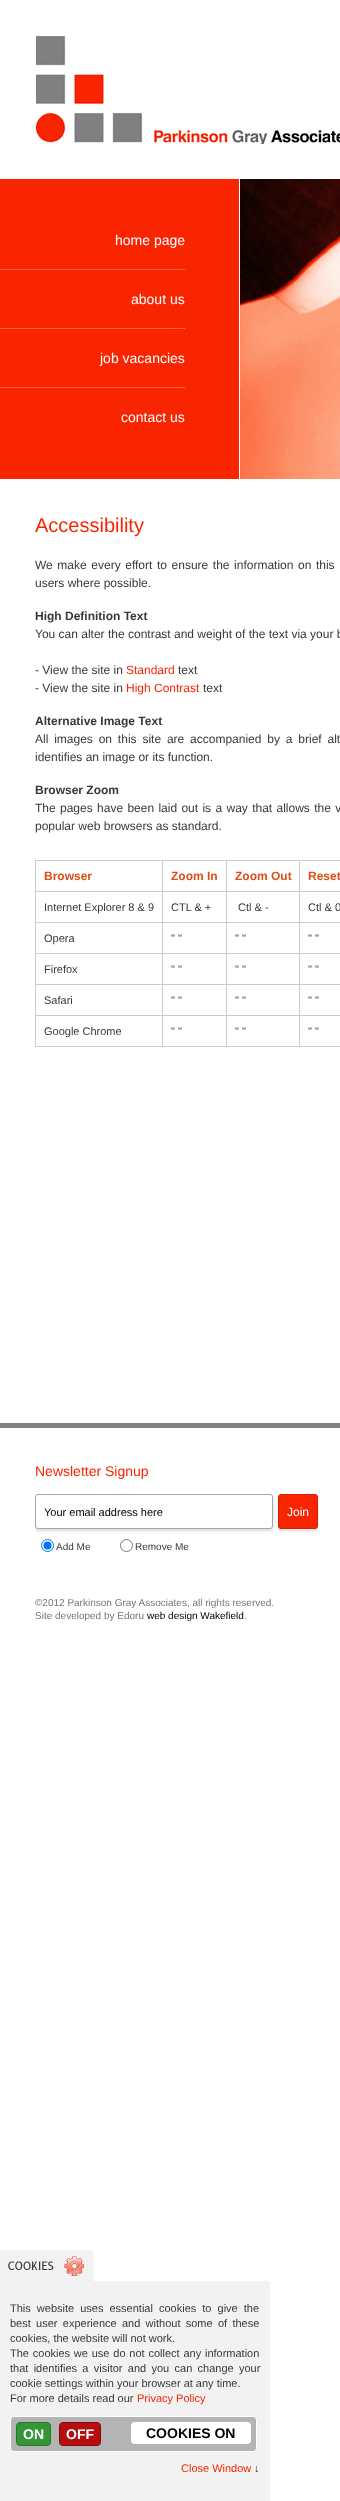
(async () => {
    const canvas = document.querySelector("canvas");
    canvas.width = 340;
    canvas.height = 2501;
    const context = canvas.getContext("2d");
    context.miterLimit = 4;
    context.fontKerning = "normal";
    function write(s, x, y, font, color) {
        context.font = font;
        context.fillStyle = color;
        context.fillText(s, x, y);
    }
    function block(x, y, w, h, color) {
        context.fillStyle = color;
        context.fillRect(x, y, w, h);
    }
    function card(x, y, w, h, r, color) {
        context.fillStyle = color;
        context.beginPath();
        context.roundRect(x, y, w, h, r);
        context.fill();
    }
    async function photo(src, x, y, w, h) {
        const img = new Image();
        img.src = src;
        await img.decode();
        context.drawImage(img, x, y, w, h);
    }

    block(0, 0, 340, 2501, "rgb(255, 255, 255)");
    await photo("media/1.png", 36, 35, 304, 109);
    block(0, 179, 239, 300, "rgb(248, 37, 0)");
    block(0, 269, 185, 1, "rgb(250, 98, 71)");
    write("home page", 115, 245, "14px Liberation Sans", "rgb(255, 255, 255)");
    block(0, 328, 185, 1, "rgb(250, 98, 71)");
    write("about us", 131, 304, "14px Liberation Sans", "rgb(255, 255, 255)");
    block(0, 387, 185, 1, "rgb(250, 98, 71)");
    write("job vacancies", 100, 363, "14px Liberation Sans", "rgb(255, 255, 255)");
    write("contact us", 121, 422, "14px Liberation Sans", "rgb(255, 255, 255)");
    await photo("media/2.png", 240, 179, 100, 300);
    write("Accessibility", 35, 532, "20px Liberation Sans", "rgb(248, 37, 0)");
    context.wordSpacing = "1.25px";
    write("We make every effort to ensure the information on this", 35, 569, "12px Liberation Sans", "rgb(56, 56, 56)");
    context.wordSpacing = "0px";
    write("users where possible.", 35, 587, "12px Liberation Sans", "rgb(56, 56, 56)");
    write("High Definition Text", 35, 620, "bold 12px Liberation Sans", "rgb(56, 56, 56)");
    write("You can alter the contrast and weight of the text via your b", 35, 638, "12px Liberation Sans", "rgb(56, 56, 56)");
    write("- View the site in", 35, 674, "12px Liberation Sans", "rgb(56, 56, 56)");
    write("Standard", 126, 674, "12px Liberation Sans", "rgb(248, 37, 0)");
    write("text", 178, 674, "12px Liberation Sans", "rgb(56, 56, 56)");
    write("- View the site in", 35, 692, "12px Liberation Sans", "rgb(56, 56, 56)");
    write("High Contrast", 126, 692, "12px Liberation Sans", "rgb(248, 37, 0)");
    write("text", 203, 692, "12px Liberation Sans", "rgb(56, 56, 56)");
    write("Alternative Image Text", 35, 725, "bold 12px Liberation Sans", "rgb(56, 56, 56)");
    context.wordSpacing = "2.5px";
    write("All images on this site are accompanied by a brief alt", 35, 743, "12px Liberation Sans", "rgb(56, 56, 56)");
    context.wordSpacing = "0px";
    write("identifies an image or its function.", 35, 761, "12px Liberation Sans", "rgb(56, 56, 56)");
    write("Browser Zoom", 35, 794, "bold 12px Liberation Sans", "rgb(56, 56, 56)");
    context.wordSpacing = "1px";
    write("The pages have been laid out is a way that allows the v", 35, 812, "12px Liberation Sans", "rgb(56, 56, 56)");
    context.wordSpacing = "0px";
    write("popular web browsers as standard.", 35, 830, "12px Liberation Sans", "rgb(56, 56, 56)");
    block(299, 860, 41, 1, "rgb(205, 205, 205)");
    block(299, 891, 41, 1, "rgb(205, 205, 205)");
    block(299, 922, 41, 1, "rgb(205, 205, 205)");
    block(299, 953, 41, 1, "rgb(205, 205, 205)");
    block(299, 984, 41, 1, "rgb(205, 205, 205)");
    block(299, 1015, 41, 1, "rgb(205, 205, 205)");
    block(299, 1046, 41, 1, "rgb(205, 205, 205)");
    block(299, 1015, 1, 32, "rgb(205, 205, 205)");
    block(226, 1015, 74, 1, "rgb(205, 205, 205)");
    block(299, 984, 1, 32, "rgb(205, 205, 205)");
    block(226, 984, 74, 1, "rgb(205, 205, 205)");
    block(299, 953, 1, 32, "rgb(205, 205, 205)");
    block(226, 953, 74, 1, "rgb(205, 205, 205)");
    block(299, 922, 1, 32, "rgb(205, 205, 205)");
    block(226, 922, 74, 1, "rgb(205, 205, 205)");
    block(299, 891, 1, 32, "rgb(205, 205, 205)");
    block(226, 891, 74, 1, "rgb(205, 205, 205)");
    block(299, 860, 1, 32, "rgb(205, 205, 205)");
    block(226, 860, 74, 1, "rgb(205, 205, 205)");
    block(226, 1046, 74, 1, "rgb(205, 205, 205)");
    block(226, 1015, 1, 32, "rgb(205, 205, 205)");
    block(162, 1015, 65, 1, "rgb(205, 205, 205)");
    block(226, 984, 1, 32, "rgb(205, 205, 205)");
    block(162, 984, 65, 1, "rgb(205, 205, 205)");
    block(226, 953, 1, 32, "rgb(205, 205, 205)");
    block(162, 953, 65, 1, "rgb(205, 205, 205)");
    block(226, 922, 1, 32, "rgb(205, 205, 205)");
    block(162, 922, 65, 1, "rgb(205, 205, 205)");
    block(226, 891, 1, 32, "rgb(205, 205, 205)");
    block(162, 891, 65, 1, "rgb(205, 205, 205)");
    block(226, 860, 1, 32, "rgb(205, 205, 205)");
    block(162, 860, 65, 1, "rgb(205, 205, 205)");
    block(162, 1046, 65, 1, "rgb(205, 205, 205)");
    block(162, 1015, 1, 32, "rgb(205, 205, 205)");
    block(35, 1015, 128, 1, "rgb(205, 205, 205)");
    block(162, 984, 1, 32, "rgb(205, 205, 205)");
    block(35, 984, 128, 1, "rgb(205, 205, 205)");
    block(162, 953, 1, 32, "rgb(205, 205, 205)");
    block(35, 953, 128, 1, "rgb(205, 205, 205)");
    block(162, 922, 1, 32, "rgb(205, 205, 205)");
    block(35, 922, 128, 1, "rgb(205, 205, 205)");
    block(162, 891, 1, 32, "rgb(205, 205, 205)");
    block(35, 891, 128, 1, "rgb(205, 205, 205)");
    block(162, 860, 1, 32, "rgb(205, 205, 205)");
    block(35, 860, 128, 1, "rgb(205, 205, 205)");
    block(35, 1046, 128, 1, "rgb(205, 205, 205)");
    block(35, 1015, 1, 32, "rgb(205, 205, 205)");
    block(35, 984, 1, 32, "rgb(205, 205, 205)");
    block(35, 953, 1, 32, "rgb(205, 205, 205)");
    block(35, 922, 1, 32, "rgb(205, 205, 205)");
    block(35, 891, 1, 32, "rgb(205, 205, 205)");
    block(35, 860, 1, 32, "rgb(205, 205, 205)");
    write("Browser", 44, 880, "bold 12px Liberation Sans", "rgb(221, 79, 24)");
    write("Zoom In", 171, 880, "bold 12px Liberation Sans", "rgb(221, 79, 24)");
    write("Zoom Out", 235, 880, "bold 12px Liberation Sans", "rgb(221, 79, 24)");
    write("Reset", 308, 880, "bold 12px Liberation Sans", "rgb(221, 79, 24)");
    write("Internet Explorer 8 & 9", 44, 911, "11px Liberation Sans", "rgb(56, 56, 56)");
    write("CTL & +", 171, 911, "11px Liberation Sans", "rgb(56, 56, 56)");
    write("Ctl & -", 238, 911, "11px Liberation Sans", "rgb(56, 56, 56)");
    write("Ctl & 0", 308, 911, "11px Liberation Sans", "rgb(56, 56, 56)");
    write("Opera", 44, 942, "11px Liberation Sans", "rgb(56, 56, 56)");
    write("\" \"", 171, 942, "11px Liberation Sans", "rgb(56, 56, 56)");
    write("\" \"", 235, 942, "11px Liberation Sans", "rgb(56, 56, 56)");
    write("\" \"", 308, 942, "11px Liberation Sans", "rgb(56, 56, 56)");
    write("Firefox", 44, 973, "11px Liberation Sans", "rgb(56, 56, 56)");
    write("\" \"", 171, 973, "11px Liberation Sans", "rgb(56, 56, 56)");
    write("\" \"", 235, 973, "11px Liberation Sans", "rgb(56, 56, 56)");
    write("\" \"", 308, 973, "11px Liberation Sans", "rgb(56, 56, 56)");
    write("Safari", 44, 1004, "11px Liberation Sans", "rgb(56, 56, 56)");
    write("\" \"", 171, 1004, "11px Liberation Sans", "rgb(56, 56, 56)");
    write("\" \"", 235, 1004, "11px Liberation Sans", "rgb(56, 56, 56)");
    write("\" \"", 308, 1004, "11px Liberation Sans", "rgb(56, 56, 56)");
    write("Google Chrome", 44, 1035, "11px Liberation Sans", "rgb(56, 56, 56)");
    write("\" \"", 171, 1035, "11px Liberation Sans", "rgb(56, 56, 56)");
    write("\" \"", 235, 1035, "11px Liberation Sans", "rgb(56, 56, 56)");
    write("\" \"", 308, 1035, "11px Liberation Sans", "rgb(56, 56, 56)");
    block(0, 1423, 340, 5, "rgb(128, 128, 128)");
    write("Newsletter Signup", 35, 1476, "14px Liberation Sans", "rgb(248, 37, 0)");
    context.save();
    context.beginPath();
    context.rect(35, 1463, 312, 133);
    context.clip();
    context.fillStyle = "rgb(221, 221, 221)";
    context.filter = "blur(1.5px)";
    context.beginPath();
    context.roundRect(35, 1496, 238, 35, 3);
    context.fill();
    context.filter = "none";
    context.restore();
    context.fillStyle = "rgb(255, 255, 255)";
    context.beginPath();
    context.roundRect(35.5, 1494.5, 237, 34, 2.5);
    context.fill();
    context.strokeStyle = "rgb(166, 166, 166)";
    context.stroke();
    write("Your email address here", 44, 1516, "11px Liberation Sans", "rgb(0, 0, 0)");
    context.fillStyle = "rgb(221, 221, 221)";
    context.filter = "blur(1.5px)";
    context.beginPath();
    context.roundRect(278, 1496, 40, 35, 3);
    context.fill();
    context.filter = "none";
    context.fillStyle = "rgb(248, 37, 0)";
    context.beginPath();
    context.roundRect(278.5, 1494.5, 39, 34, 2.5);
    context.fill();
    context.strokeStyle = "rgb(215, 32, 0)";
    context.stroke();
    write("Join", 287, 1516, "12px Liberation Sans", "rgb(255, 255, 255)");
    context.beginPath();
    context.arc(47.5, 1545.5, 6, 0, Math.PI * 2);
    context.strokeStyle = "rgb(0, 117, 255)";
    context.stroke();
    context.fillStyle = "rgb(0, 117, 255)";
    context.beginPath();
    context.arc(47.5, 1545.5, 4, 0, Math.PI * 2);
    context.fill();
    write("Add Me", 56, 1550, "10px Liberation Sans", "rgb(56, 56, 56)");
    context.beginPath();
    context.arc(126.5, 1545.5, 6, 0, Math.PI * 2);
    context.strokeStyle = "rgb(118, 118, 118)";
    context.stroke();
    write("Remove Me", 135, 1550, "10px Liberation Sans", "rgb(56, 56, 56)");
    write("©2012 Parkinson Gray Associates, all rights reserved.", 35, 1606, "10px Liberation Sans", "rgb(117, 117, 117)");
    write("Site developed by Edoru", 35, 1619, "10px Liberation Sans", "rgb(117, 117, 117)");
    write("web design Wakefield", 147, 1619, "10px Liberation Sans", "rgb(0, 0, 0)");
    write(".", 244, 1619, "10px Liberation Sans", "rgb(117, 117, 117)");
    await photo("media/3.png", 0, 2250, 94, 31);
    context.fillStyle = "rgb(242, 242, 242)";
    context.beginPath();
    context.roundRect(0, 2281, 270, 220, [0, 3, 0, 0]);
    context.fill();
    context.wordSpacing = "3px";
    write("This website uses essential cookies to give the", 10, 2312, "11px Liberation Sans", "rgb(56, 56, 56)");
    context.wordSpacing = "2.25px";
    write("best user experience and without some of these", 10, 2327, "11px Liberation Sans", "rgb(56, 56, 56)");
    context.wordSpacing = "0px";
    write("cookies, the website will not work.", 10, 2342, "11px Liberation Sans", "rgb(56, 56, 56)");
    context.wordSpacing = "0.75px";
    write("The cookies we use do not collect any information", 10, 2357, "11px Liberation Sans", "rgb(56, 56, 56)");
    context.wordSpacing = "2.25px";
    write("that identifies a visitor and you can change your", 10, 2372, "11px Liberation Sans", "rgb(56, 56, 56)");
    context.wordSpacing = "0px";
    write("cookie settings within your browser at any time.", 10, 2387, "11px Liberation Sans", "rgb(56, 56, 56)");
    write("For more details read our", 10, 2402, "11px Liberation Sans", "rgb(56, 56, 56)");
    write("Privacy Policy", 137, 2402, "11px Liberation Sans", "rgb(248, 37, 0)");
    context.fillStyle = "rgb(180, 180, 180)";
    context.beginPath();
    context.roundRect(10.5, 2416.5, 246, 35, 3.5);
    context.fill();
    context.strokeStyle = "rgb(255, 255, 255)";
    context.stroke();
    context.fillStyle = "rgb(53, 149, 55)";
    context.beginPath();
    context.roundRect(16.5, 2422.5, 34, 23, 3.5);
    context.fill();
    context.strokeStyle = "rgb(36, 122, 38)";
    context.stroke();
    write("ON", 23, 2439, "bold 14px Liberation Sans", "rgb(255, 255, 255)");
    context.fillStyle = "rgb(181, 14, 14)";
    context.beginPath();
    context.roundRect(59.5, 2422.5, 41, 23, 3.5);
    context.fill();
    context.strokeStyle = "rgb(134, 8, 8)";
    context.stroke();
    write("OFF", 66, 2439, "bold 14px Liberation Sans", "rgb(255, 255, 255)");
    card(131, 2422, 120, 22, 4, "rgb(255, 255, 255)");
    write("COOKIES ON", 146, 2438, "bold 14px Liberation Sans", "rgb(0, 0, 0)");
    write("Close Window", 181, 2472, "11px Liberation Sans", "rgb(248, 37, 0)");
    write("↓", 254, 2472, "11px Liberation Sans", "rgb(56, 56, 56)");
})();
